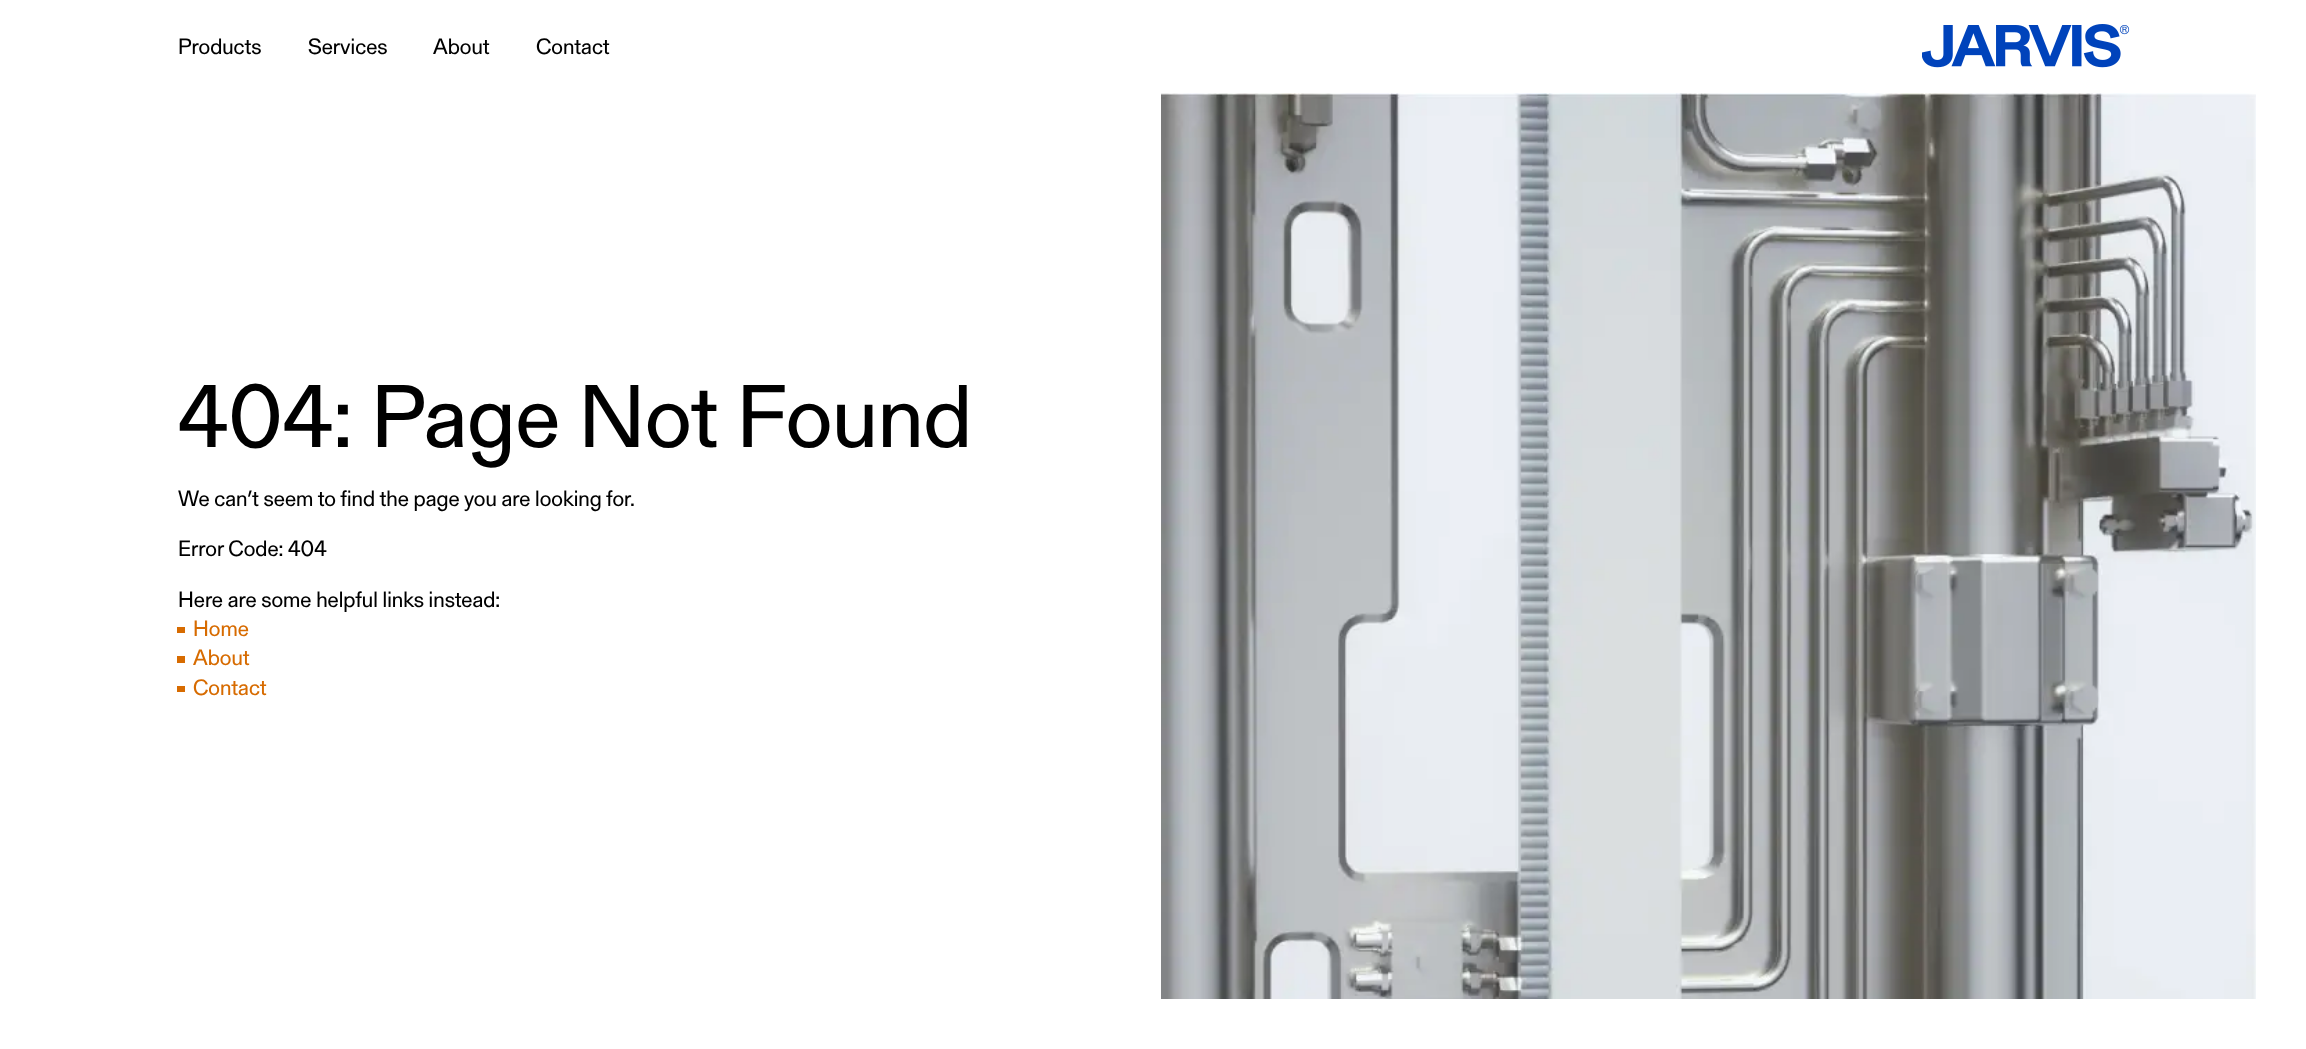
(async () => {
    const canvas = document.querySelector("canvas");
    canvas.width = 2306;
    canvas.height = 1049;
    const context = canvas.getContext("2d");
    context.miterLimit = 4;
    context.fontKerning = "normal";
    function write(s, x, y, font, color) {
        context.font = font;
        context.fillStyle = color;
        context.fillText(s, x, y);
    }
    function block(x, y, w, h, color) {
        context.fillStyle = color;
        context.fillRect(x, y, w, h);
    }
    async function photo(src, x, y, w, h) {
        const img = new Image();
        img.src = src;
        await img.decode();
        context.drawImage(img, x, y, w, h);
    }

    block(0, 0, 2306, 1049, "rgb(255, 255, 255)");
    write("Products", 178, 54, "21.9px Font", "rgb(0, 0, 0)");
    write("Services", 308, 54, "21.9px Font", "rgb(0, 0, 0)");
    write("About", 433, 54, "21.9px Font", "rgb(0, 0, 0)");
    write("Contact", 536, 54, "21.9px Font", "rgb(0, 0, 0)");
    await photo("media/1.png", 1922, 24, 208, 44);
    write("404: Page Not Found", 178, 447, "87.75px Font", "rgb(0, 0, 0)");
    write("We can’t seem to find the page you are looking for.", 178, 506, "21.9px Font", "rgb(0, 0, 0)");
    write("Error Code: 404", 178, 556, "21.9px Font", "rgb(0, 0, 0)");
    write("Here are some helpful links instead:", 178, 607, "21.9px Font", "rgb(0, 0, 0)");
    block(177, 627, 8, 6, "rgb(215, 107, 0)");
    write("Home", 193, 636, "21.9px Font", "rgb(215, 107, 0)");
    block(177, 656, 8, 7, "rgb(215, 107, 0)");
    write("About", 193, 665, "21.9px Font", "rgb(215, 107, 0)");
    block(177, 686, 8, 6, "rgb(215, 107, 0)");
    write("Contact", 193, 695, "21.9px Font", "rgb(215, 107, 0)");
    await photo("media/2.png", 1161, 93, 1095, 906);
})();
